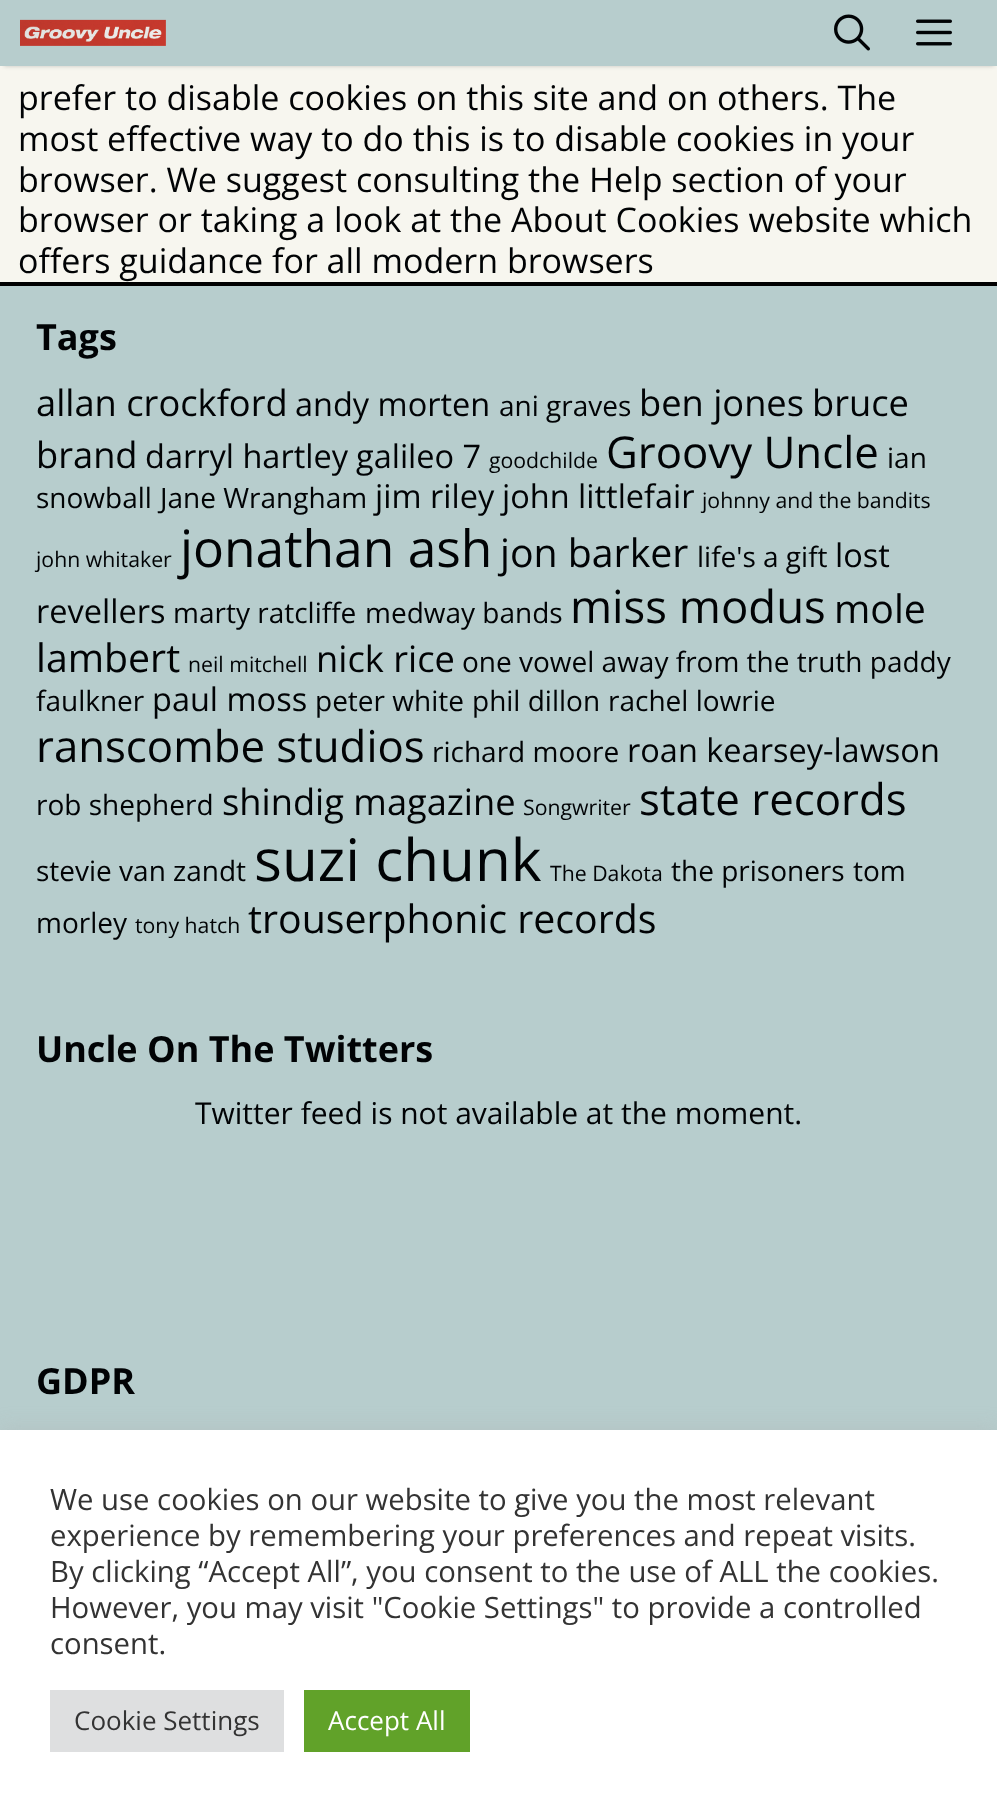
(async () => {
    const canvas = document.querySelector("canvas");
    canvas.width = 997;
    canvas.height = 1811;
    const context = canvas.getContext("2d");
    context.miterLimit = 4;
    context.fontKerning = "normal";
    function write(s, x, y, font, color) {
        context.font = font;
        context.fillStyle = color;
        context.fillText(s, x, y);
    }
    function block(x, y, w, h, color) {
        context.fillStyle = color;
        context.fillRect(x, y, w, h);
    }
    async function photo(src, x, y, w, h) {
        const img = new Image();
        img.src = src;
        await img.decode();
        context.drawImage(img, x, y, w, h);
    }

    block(0, 0, 997, 1811, "rgb(247, 246, 239)");
    context.fillStyle = "rgba(0, 0, 0, 0.2)";
    context.filter = "blur(2px)";
    context.beginPath();
    context.rect(4, 8, 990, 58);
    context.fill();
    context.filter = "none";
    block(0, 0, 997, 66, "rgb(183, 205, 205)");
    await photo("media/1.png", 20, 19, 146, 27);
    await photo("media/2.png", 834, 14, 36, 37);
    await photo("media/3.png", 916, 19, 36, 27);
    write("prefer to disable cookies on this site and on others. The", 18, 110, "34px Open Sans", "rgb(1, 3, 5)");
    write("most effective way to do this is to disable cookies in your", 18, 151, "34px Open Sans", "rgb(1, 3, 5)");
    write("browser. We suggest consulting the Help section of your", 18, 192, "34px Open Sans", "rgb(1, 3, 5)");
    write("browser or taking a look at the About Cookies website which", 18, 232, "34px Open Sans", "rgb(1, 3, 5)");
    write("offers guidance for all modern browsers", 18, 273, "34px Open Sans", "rgb(1, 3, 5)");
    block(0, 282, 997, 4, "rgb(0, 0, 0)");
    block(0, 286, 997, 1144, "rgb(183, 205, 205)");
    write("Tags", 36, 350, "bold 36px Open Sans", "rgb(1, 3, 5)");
    write("allan crockford", 36, 416, "36.25px Open Sans", "rgb(1, 3, 5)");
    write("andy morten", 295, 416, "32.5px Open Sans", "rgb(1, 3, 5)");
    write("ani graves", 499, 416, "28px Open Sans", "rgb(1, 3, 5)");
    write("ben jones", 639, 416, "36.25px Open Sans", "rgb(1, 3, 5)");
    write("bruce", 812, 416, "36.25px Open Sans", "rgb(1, 3, 5)");
    write("brand", 36, 468, "36.25px Open Sans", "rgb(1, 3, 5)");
    write("darryl hartley", 145, 468, "32.5px Open Sans", "rgb(1, 3, 5)");
    write("galileo 7", 356, 468, "32.5px Open Sans", "rgb(1, 3, 5)");
    write("goodchilde", 489, 468, "21.25px Open Sans", "rgb(1, 3, 5)");
    write("Groovy Uncle", 606, 468, "43.75px Open Sans", "rgb(1, 3, 5)");
    write("ian", 887, 468, "28px Open Sans", "rgb(1, 3, 5)");
    write("snowball", 36, 508, "28px Open Sans", "rgb(1, 3, 5)");
    write("Jane Wrangham", 160, 508, "28px Open Sans", "rgb(1, 3, 5)");
    write("jim riley", 375, 508, "32.5px Open Sans", "rgb(1, 3, 5)");
    write("john littlefair", 502, 508, "32.5px Open Sans", "rgb(1, 3, 5)");
    write("johnny and the bandits", 702, 508, "21.25px Open Sans", "rgb(1, 3, 5)");
    write("john whitaker", 36, 567, "21.25px Open Sans", "rgb(1, 3, 5)");
    write("jonathan ash", 180, 567, "51.5px Open Sans", "rgb(1, 3, 5)");
    write("jon barker", 500, 567, "39.25px Open Sans", "rgb(1, 3, 5)");
    write("life's a gift", 697, 567, "28px Open Sans", "rgb(1, 3, 5)");
    write("lost", 835, 567, "32.5px Open Sans", "rgb(1, 3, 5)");
    write("revellers", 36, 623, "32.5px Open Sans", "rgb(1, 3, 5)");
    write("marty ratcliffe", 173, 623, "28px Open Sans", "rgb(1, 3, 5)");
    write("medway bands", 365, 623, "28px Open Sans", "rgb(1, 3, 5)");
    write("miss modus", 570, 623, "45.5px Open Sans", "rgb(1, 3, 5)");
    write("mole", 834, 623, "39.25px Open Sans", "rgb(1, 3, 5)");
    write("lambert", 36, 672, "39.25px Open Sans", "rgb(1, 3, 5)");
    write("neil mitchell", 188, 672, "21.25px Open Sans", "rgb(1, 3, 5)");
    write("nick rice", 316, 672, "36.25px Open Sans", "rgb(1, 3, 5)");
    write("one vowel away from the truth paddy", 462, 672, "28px Open Sans", "rgb(1, 3, 5)");
    write("faulkner", 36, 711, "28px Open Sans", "rgb(1, 3, 5)");
    write("paul moss", 152, 711, "32.5px Open Sans", "rgb(1, 3, 5)");
    write("peter white", 315, 711, "28px Open Sans", "rgb(1, 3, 5)");
    write("phil dillon", 472, 711, "28px Open Sans", "rgb(1, 3, 5)");
    write("rachel lowrie", 608, 711, "28px Open Sans", "rgb(1, 3, 5)");
    write("ranscombe studios", 36, 762, "43.75px Open Sans", "rgb(1, 3, 5)");
    write("richard moore", 432, 762, "28px Open Sans", "rgb(1, 3, 5)");
    write("roan kearsey-lawson", 627, 762, "32.5px Open Sans", "rgb(1, 3, 5)");
    write("rob shepherd", 36, 815, "28px Open Sans", "rgb(1, 3, 5)");
    write("shindig magazine", 222, 815, "36.25px Open Sans", "rgb(1, 3, 5)");
    write("Songwriter", 523, 815, "21.25px Open Sans", "rgb(1, 3, 5)");
    write("state records", 639, 815, "43.75px Open Sans", "rgb(1, 3, 5)");
    write("stevie van zandt", 36, 881, "28px Open Sans", "rgb(1, 3, 5)");
    write("suzi chunk", 254, 881, "58.5px Open Sans", "rgb(1, 3, 5)");
    write("The Dakota", 550, 881, "21.25px Open Sans", "rgb(1, 3, 5)");
    write("the prisoners", 671, 881, "28px Open Sans", "rgb(1, 3, 5)");
    write("tom", 853, 881, "28px Open Sans", "rgb(1, 3, 5)");
    write("morley", 36, 933, "28px Open Sans", "rgb(1, 3, 5)");
    write("tony hatch", 135, 933, "21.25px Open Sans", "rgb(1, 3, 5)");
    write("trouserphonic records", 248, 933, "39.25px Open Sans", "rgb(1, 3, 5)");
    write("Uncle On The Twitters", 36, 1062, "bold 36px Open Sans", "rgb(1, 3, 5)");
    write("Twitter feed is not available at the moment.", 195, 1124, "30px Open Sans", "rgb(1, 3, 5)");
    write("GDPR", 36, 1394, "bold 36px Open Sans", "rgb(1, 3, 5)");
    context.fillStyle = "rgba(172, 171, 171, 0.3)";
    context.filter = "blur(10px)";
    context.beginPath();
    context.rect(0, 1428, 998, 382);
    context.fill();
    context.filter = "none";
    block(0, 1430, 997, 381, "rgb(255, 255, 255)");
    write("We use cookies on our website to give you the most relevant", 50, 1510, "29.3px Open Sans", "rgb(51, 51, 51)");
    write("experience by remembering your preferences and repeat visits.", 50, 1546, "29.3px Open Sans", "rgb(51, 51, 51)");
    write("By clicking “Accept All”, you consent to the use of ALL the cookies.", 50, 1582, "29.3px Open Sans", "rgb(51, 51, 51)");
    write("However, you may visit \"Cookie Settings\" to provide a controlled", 50, 1618, "29.3px Open Sans", "rgb(51, 51, 51)");
    write("consent.", 50, 1654, "29.3px Open Sans", "rgb(51, 51, 51)");
    block(50, 1690, 234, 62, "rgb(222, 223, 224)");
    write("Cookie Settings", 74, 1730, "26px Open Sans", "rgb(51, 51, 51)");
    block(304, 1690, 166, 62, "rgb(97, 162, 41)");
    write("Accept All", 328, 1730, "26px Open Sans", "rgb(255, 255, 255)");
})();
